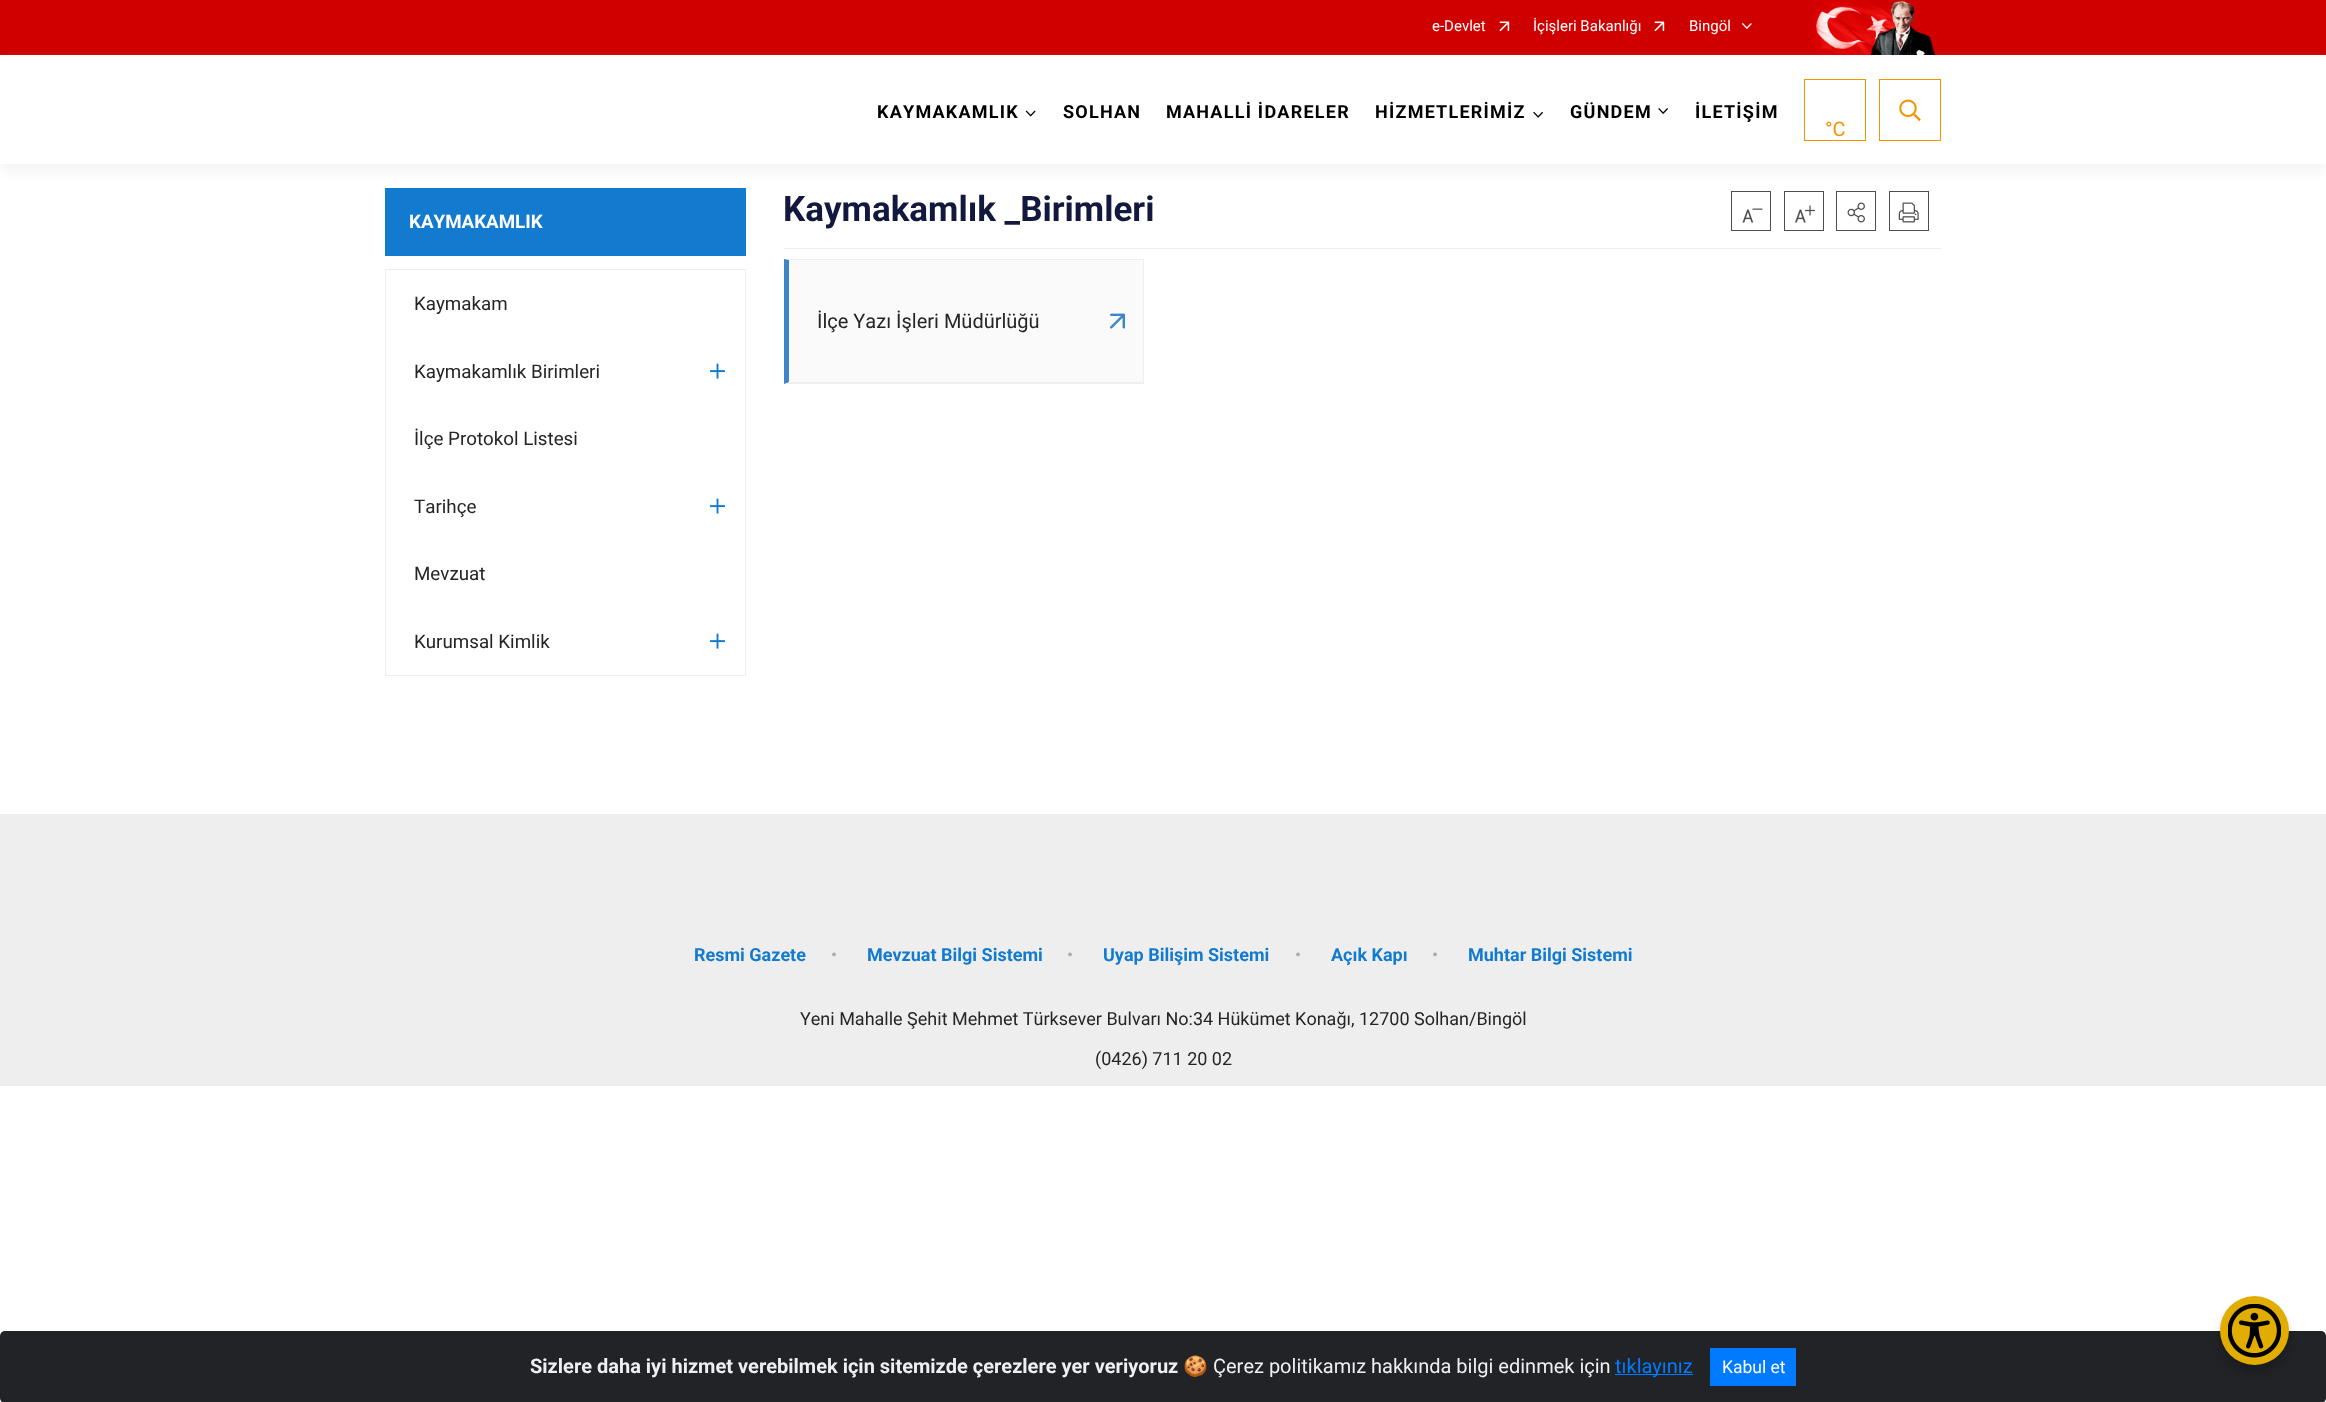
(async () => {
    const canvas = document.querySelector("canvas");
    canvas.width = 2326;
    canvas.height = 1402;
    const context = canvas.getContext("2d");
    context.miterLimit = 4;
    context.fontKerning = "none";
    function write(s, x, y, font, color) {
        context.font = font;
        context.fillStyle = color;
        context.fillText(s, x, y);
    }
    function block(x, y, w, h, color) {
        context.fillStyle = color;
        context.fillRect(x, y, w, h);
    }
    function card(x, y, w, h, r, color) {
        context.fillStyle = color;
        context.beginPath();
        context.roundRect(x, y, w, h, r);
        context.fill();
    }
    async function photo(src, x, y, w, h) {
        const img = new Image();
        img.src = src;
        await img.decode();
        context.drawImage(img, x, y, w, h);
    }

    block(0, 0, 2326, 1402, "rgb(255, 255, 255)");
    block(0, 0, 2326, 55, "rgb(206, 0, 0)");
    write("e-Devlet", 1432, 31, "15px Roboto", "rgb(255, 255, 255)");
    await photo("media/1.png", 1499, 21, 11, 11);
    write("İçişleri Bakanlığı", 1533, 31, "15px Roboto", "rgb(255, 255, 255)");
    await photo("media/1.png", 1654, 21, 11, 11);
    write("Bingöl", 1689, 31, "15px Roboto", "rgb(255, 255, 255)");
    await photo("media/2.png", 1742, 23, 10, 6);
    await photo("media/3.png", 1809, 0, 127, 55);
    block(385, 188, 361, 68, "rgb(19, 123, 207)");
    context.fillStyle = "rgba(238, 238, 238, 0.62)";
    context.filter = "blur(6px)";
    context.beginPath();
    context.rect(0, 63, 2326, 108);
    context.fill();
    context.filter = "none";
    block(0, 59, 2326, 105, "rgb(255, 255, 255)");
    context.letterSpacing = "1.25px";
    write("KAYMAKAMLIK", 877, 118, "bold 18px Roboto", "rgb(0, 0, 0)");
    await photo("media/4.png", 1025, 110, 11, 7);
    write("SOLHAN", 1063, 118, "bold 18px Roboto", "rgb(0, 0, 0)");
    write("MAHALLİ İDARELER", 1166, 118, "bold 18px Roboto", "rgb(0, 0, 0)");
    write("HİZMETLERİMİZ", 1375, 118, "bold 18px Roboto", "rgb(0, 0, 0)");
    await photo("media/5.png", 1533, 111, 10, 7);
    write("GÜNDEM", 1570, 118, "bold 18px Roboto", "rgb(0, 0, 0)");
    await photo("media/6.png", 1658, 108, 10, 6);
    write("İLETİŞİM", 1695, 118, "bold 18px Roboto", "rgb(0, 0, 0)");
    context.strokeStyle = "rgb(245, 147, 0)";
    context.strokeRect(1804.5, 79.5, 61, 61);
    context.letterSpacing = "0px";
    write("°C", 1825, 136, "20px Roboto", "rgb(245, 147, 0)");
    context.strokeRect(1879.5, 79.5, 61, 61);
    await photo("media/7.png", 1899, 99, 22, 22);
    write("KAYMAKAMLIK", 409, 228, "bold 18.75px Roboto", "rgb(255, 255, 255)");
    context.strokeStyle = "rgb(238, 238, 238)";
    context.strokeRect(385.5, 269.5, 360, 406);
    write("Kaymakam", 414, 310, "18.75px Roboto", "rgb(37, 37, 37)");
    write("Kaymakamlık Birimleri", 414, 378, "18.75px Roboto", "rgb(37, 37, 37)");
    await photo("media/8.png", 710, 363, 15, 16);
    write("İlçe Protokol Listesi", 414, 445, "18.75px Roboto", "rgb(37, 37, 37)");
    write("Tarihçe", 414, 513, "18.75px Roboto", "rgb(37, 37, 37)");
    await photo("media/8.png", 710, 498, 15, 16);
    write("Mevzuat", 414, 580, "18.75px Roboto", "rgb(37, 37, 37)");
    write("Kurumsal Kimlik", 414, 648, "18.75px Roboto", "rgb(37, 37, 37)");
    await photo("media/8.png", 710, 633, 15, 16);
    block(784, 248, 1157, 1, "rgb(238, 238, 238)");
    write("Kaymakamlık _Birimleri", 783, 221, "bold 35px Roboto", "rgb(19, 24, 62)");
    context.strokeStyle = "rgb(79, 79, 79)";
    context.strokeRect(1731.5, 191.5, 39, 39);
    await photo("media/9.png", 1742, 208, 21, 15);
    context.strokeRect(1784.5, 191.5, 39, 39);
    await photo("media/10.png", 1795, 205, 20, 18);
    context.strokeRect(1836.5, 191.5, 39, 39);
    await photo("media/11.png", 1847, 202, 18, 21);
    context.strokeRect(1889.5, 191.5, 39, 39);
    await photo("media/12.png", 1898, 202, 21, 21);
    block(789, 260, 354, 123, "rgb(250, 250, 250)");
    context.fillStyle = "rgb(238, 238, 238)";
    context.beginPath();
    context.moveTo(784, 259);
    context.lineTo(1144, 259);
    context.lineTo(1142, 260);
    context.lineTo(789, 260);
    context.closePath();
    context.fill();
    block(1143, 259, 1, 125, "rgb(238, 238, 238)");
    context.beginPath();
    context.moveTo(1144, 384);
    context.lineTo(784, 384);
    context.lineTo(789, 382);
    context.lineTo(1142, 382);
    context.closePath();
    context.fill();
    context.fillStyle = "rgb(61, 133, 198)";
    context.beginPath();
    context.moveTo(784, 384);
    context.lineTo(784, 259);
    context.lineTo(789, 260);
    context.lineTo(789, 382);
    context.closePath();
    context.fill();
    write("İlçe Yazı İşleri Müdürlüğü", 817, 328, "20px Roboto", "rgb(37, 37, 37)");
    await photo("media/13.png", 1110, 313, 15, 16);
    block(0, 814, 2326, 272, "rgb(238, 238, 238)");
    write("Resmi Gazete", 694, 961, "bold 18px Roboto", "rgb(19, 123, 207)");
    write("•", 831, 961, "18px Roboto", "rgb(170, 170, 170)");
    write("Mevzuat Bilgi Sistemi", 867, 961, "bold 18px Roboto", "rgb(19, 123, 207)");
    write("•", 1067, 961, "18px Roboto", "rgb(170, 170, 170)");
    write("Uyap Bilişim Sistemi", 1103, 961, "bold 18px Roboto", "rgb(19, 123, 207)");
    write("•", 1295, 961, "18px Roboto", "rgb(170, 170, 170)");
    write("Açık Kapı", 1331, 961, "bold 18px Roboto", "rgb(19, 123, 207)");
    write("•", 1432, 961, "18px Roboto", "rgb(170, 170, 170)");
    write("Muhtar Bilgi Sistemi", 1468, 961, "bold 18px Roboto", "rgb(19, 123, 207)");
    write("Yeni Mahalle Şehit Mehmet Türksever Bulvarı No:34 Hükümet Konağı, 12700 Solhan/Bingöl", 800, 1025, "18px Roboto", "rgb(37, 37, 37)");
    write("(0426) 711 20 02", 1095, 1065, "18px Roboto", "rgb(37, 37, 37)");
    card(0, 1331, 2326, 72, 5, "rgb(33, 35, 39)");
    write("Sizlere daha iyi hizmet verebilmek için sitemizde çerezlere yer veriyoruz", 530, 1373, "bold 20px Roboto", "rgb(236, 240, 241)");
    write("🍪", 1183, 1373, "20px Noto Color Emoji", "rgb(236, 240, 241)");
    write("Çerez politikamız hakkında bilgi edinmek için", 1213, 1373, "20px Roboto", "rgb(236, 240, 241)");
    block(1615, 1374, 78, 1, "rgb(0, 123, 255)");
    write("tıklayınız", 1615, 1373, "20px Roboto", "rgb(0, 123, 255)");
    block(1710, 1348, 86, 38, "rgb(0, 123, 255)");
    write("Kabul et", 1722, 1373, "17.5px Roboto", "rgb(255, 255, 255)");
    context.fillStyle = "rgba(0, 0, 0, 0.2)";
    context.filter = "blur(5px)";
    context.beginPath();
    context.roundRect(2220, 1304, 69, 69, 34.5);
    context.fill();
    context.filter = "none";
    context.fillStyle = "rgb(225, 173, 1)";
    context.beginPath();
    context.arc(2254.5, 1330.5, 34.5, 0, Math.PI * 2);
    context.fill();
    await photo("media/14.png", 2228, 1304, 53, 54);
})();
